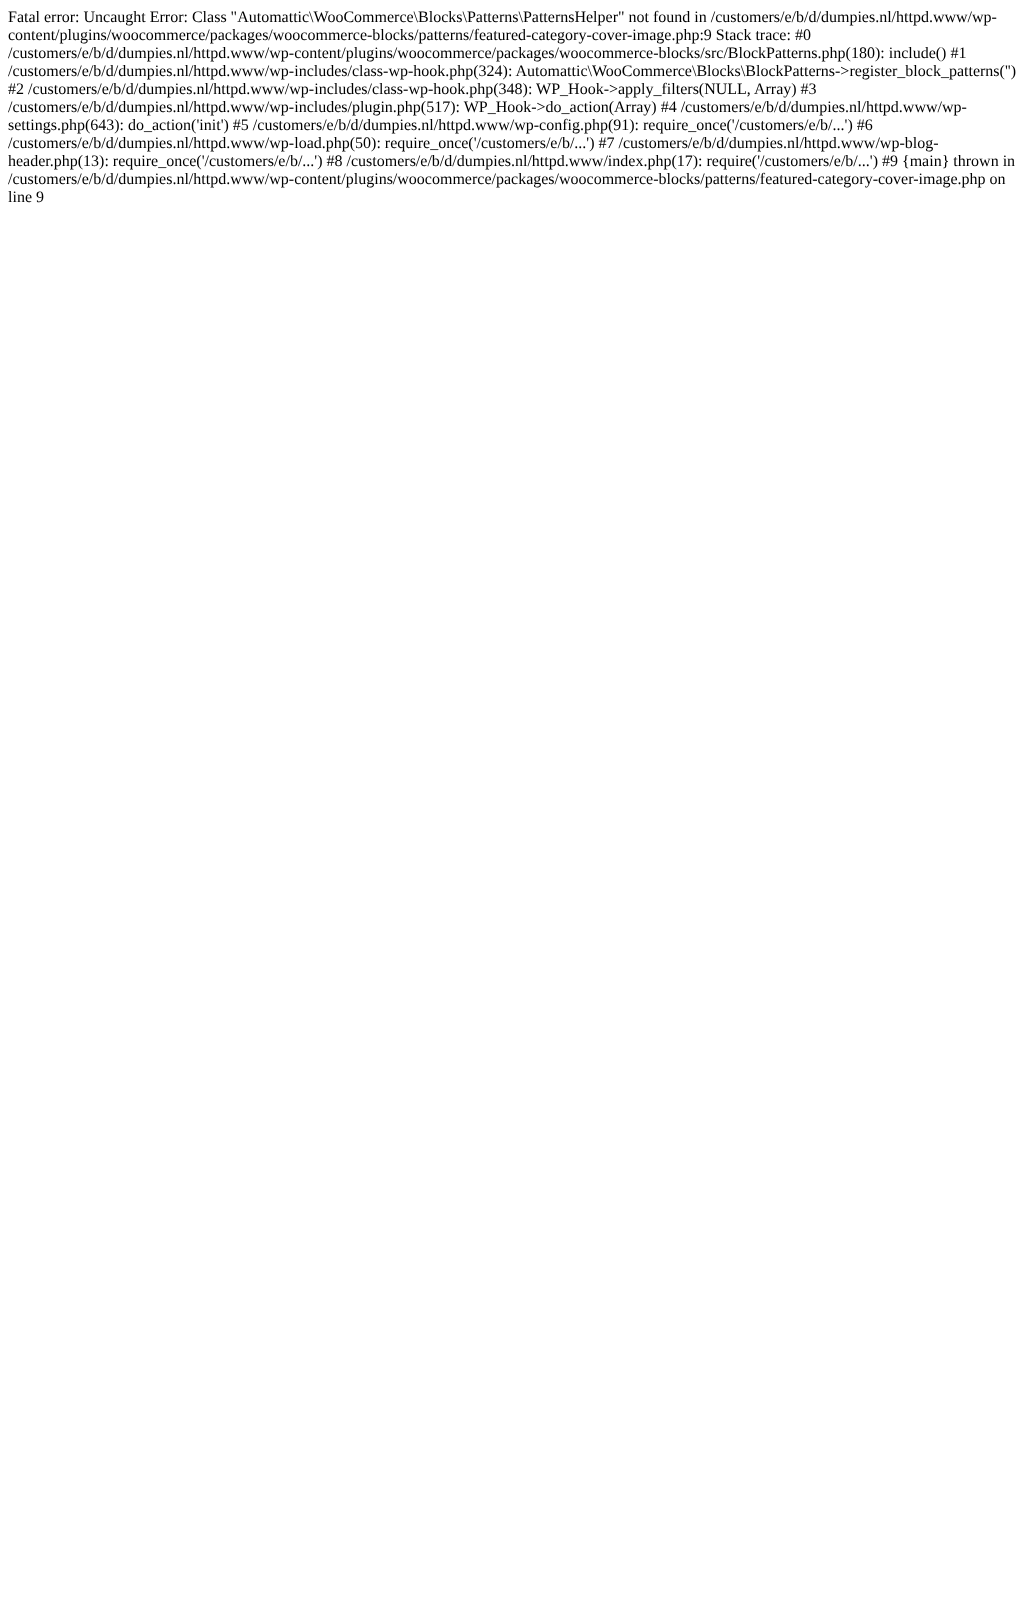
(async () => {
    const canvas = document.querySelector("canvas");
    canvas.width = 1031;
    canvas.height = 1602;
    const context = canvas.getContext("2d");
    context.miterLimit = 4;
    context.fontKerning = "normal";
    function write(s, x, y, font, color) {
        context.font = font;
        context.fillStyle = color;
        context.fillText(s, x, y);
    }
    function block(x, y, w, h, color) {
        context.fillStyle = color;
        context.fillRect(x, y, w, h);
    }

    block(0, 0, 1031, 1602, "rgb(255, 255, 255)");
    write("Fatal error: Uncaught Error: Class \"Automattic\\WooCommerce\\Blocks\\Patterns\\PatternsHelper\" not found in /customers/e/b/d/dumpies.nl/httpd.www/wp-", 8, 22, "16px Liberation Serif", "rgb(0, 0, 0)");
    write("content/plugins/woocommerce/packages/woocommerce-blocks/patterns/featured-category-cover-image.php:9 Stack trace: #0", 8, 40, "16px Liberation Serif", "rgb(0, 0, 0)");
    write("/customers/e/b/d/dumpies.nl/httpd.www/wp-content/plugins/woocommerce/packages/woocommerce-blocks/src/BlockPatterns.php(180): include() #1", 8, 58, "16px Liberation Serif", "rgb(0, 0, 0)");
    write("/customers/e/b/d/dumpies.nl/httpd.www/wp-includes/class-wp-hook.php(324): Automattic\\WooCommerce\\Blocks\\BlockPatterns->register_block_patterns('')", 8, 76, "16px Liberation Serif", "rgb(0, 0, 0)");
    write("#2 /customers/e/b/d/dumpies.nl/httpd.www/wp-includes/class-wp-hook.php(348): WP_Hook->apply_filters(NULL, Array) #3", 8, 94, "16px Liberation Serif", "rgb(0, 0, 0)");
    write("/customers/e/b/d/dumpies.nl/httpd.www/wp-includes/plugin.php(517): WP_Hook->do_action(Array) #4 /customers/e/b/d/dumpies.nl/httpd.www/wp-", 8, 112, "16px Liberation Serif", "rgb(0, 0, 0)");
    write("settings.php(643): do_action('init') #5 /customers/e/b/d/dumpies.nl/httpd.www/wp-config.php(91): require_once('/customers/e/b/...') #6", 8, 130, "16px Liberation Serif", "rgb(0, 0, 0)");
    write("/customers/e/b/d/dumpies.nl/httpd.www/wp-load.php(50): require_once('/customers/e/b/...') #7 /customers/e/b/d/dumpies.nl/httpd.www/wp-blog-", 8, 148, "16px Liberation Serif", "rgb(0, 0, 0)");
    write("header.php(13): require_once('/customers/e/b/...') #8 /customers/e/b/d/dumpies.nl/httpd.www/index.php(17): require('/customers/e/b/...') #9 {main} thrown in", 8, 166, "16px Liberation Serif", "rgb(0, 0, 0)");
    write("/customers/e/b/d/dumpies.nl/httpd.www/wp-content/plugins/woocommerce/packages/woocommerce-blocks/patterns/featured-category-cover-image.php on", 8, 184, "16px Liberation Serif", "rgb(0, 0, 0)");
    write("line 9", 8, 202, "16px Liberation Serif", "rgb(0, 0, 0)");
})();
